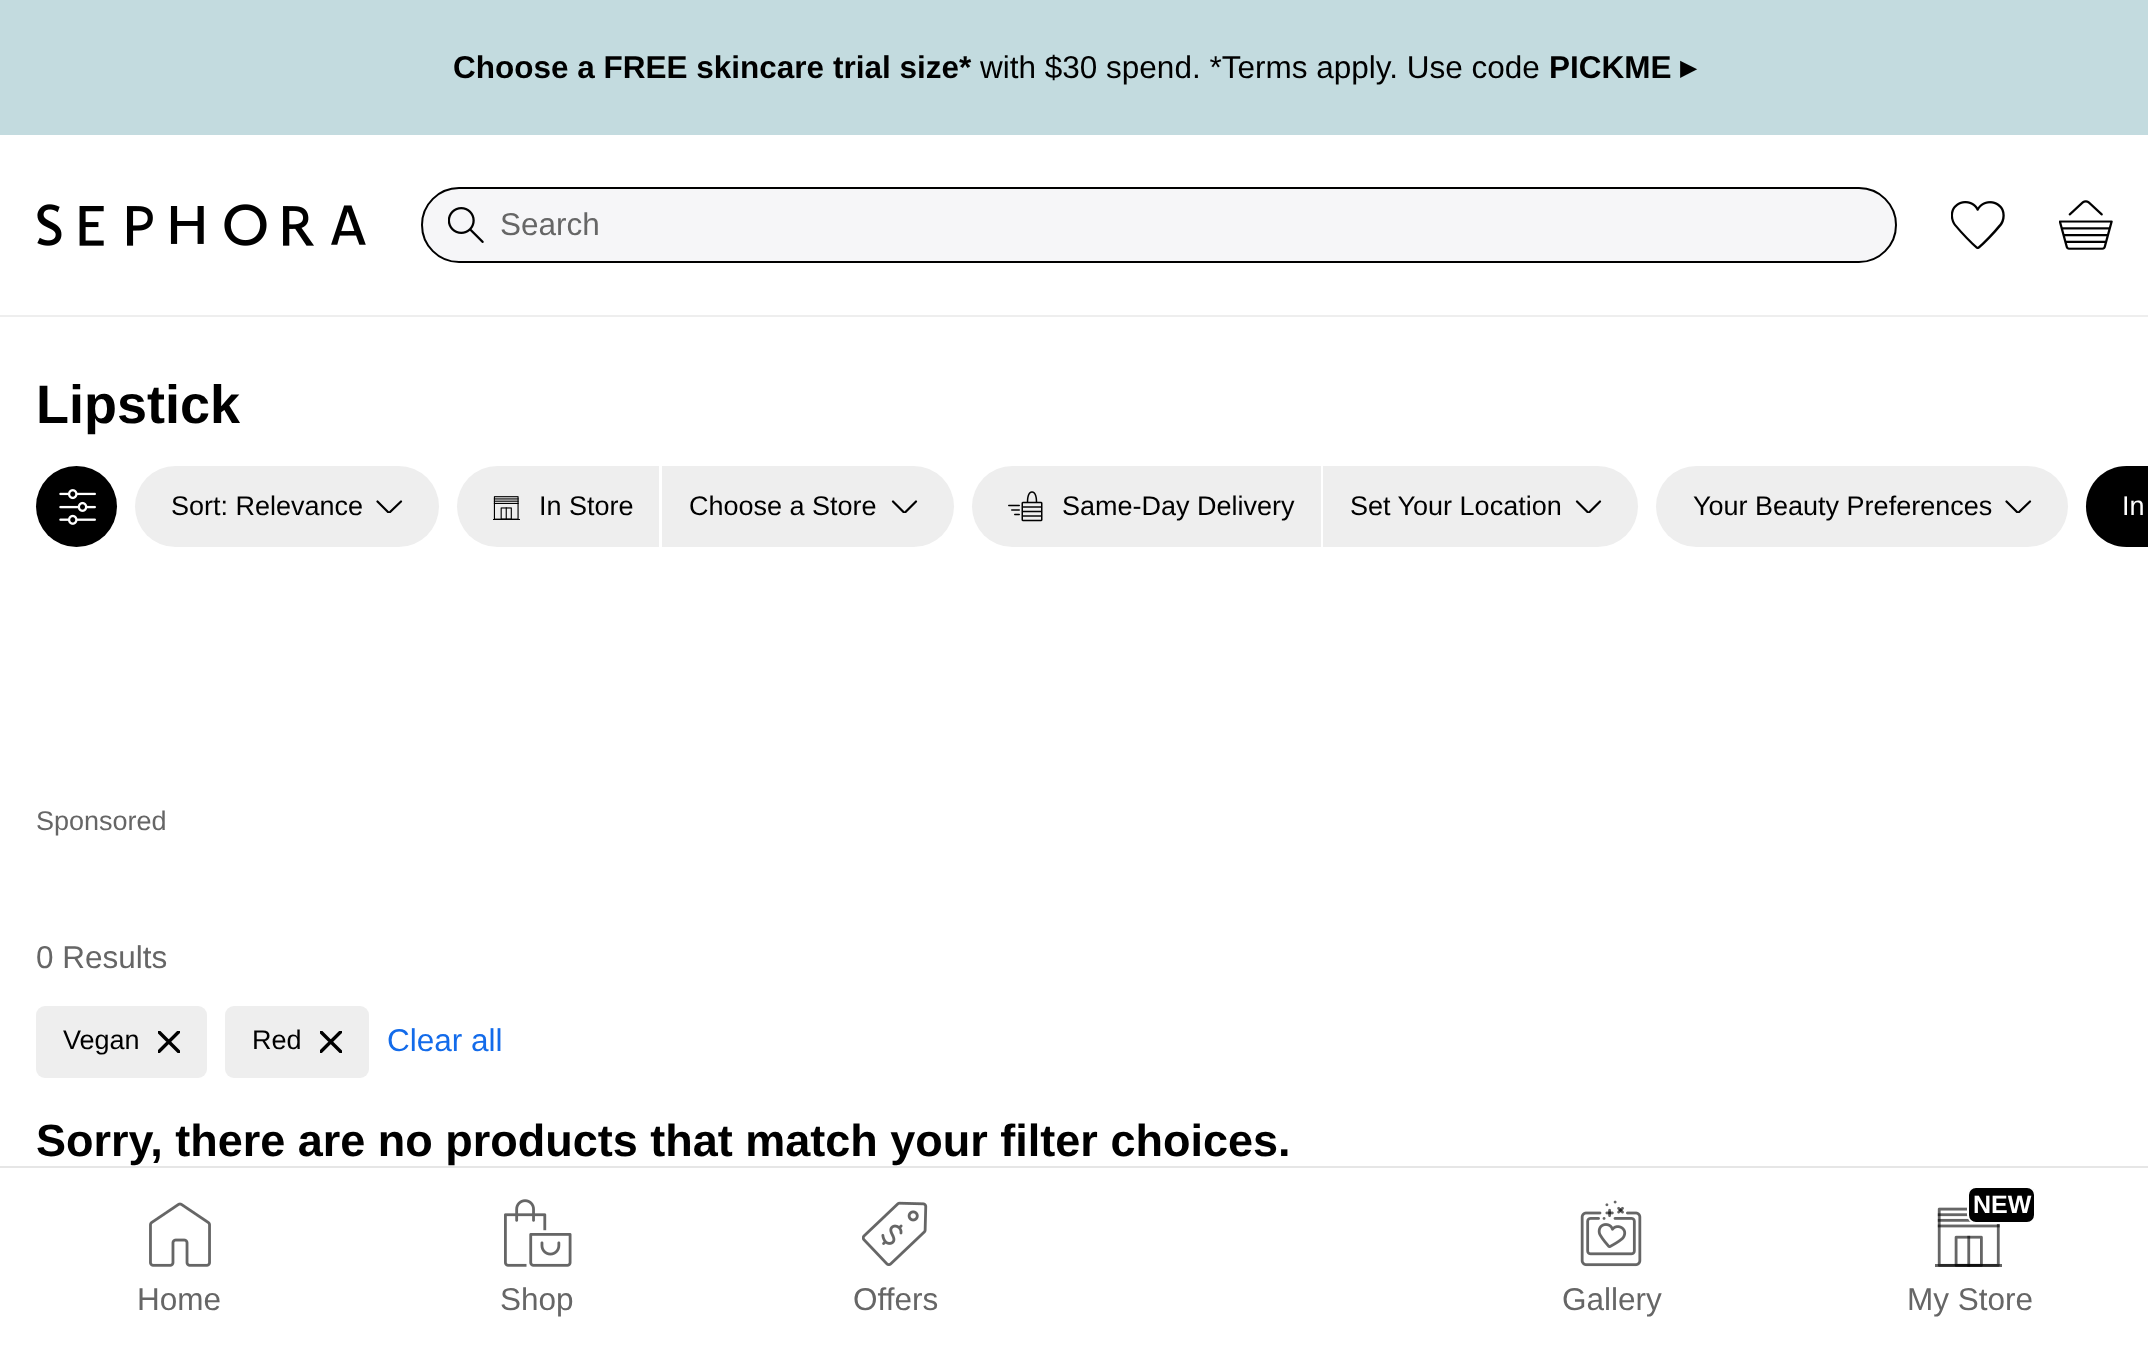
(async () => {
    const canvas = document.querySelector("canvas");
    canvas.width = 2148;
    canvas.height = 1361;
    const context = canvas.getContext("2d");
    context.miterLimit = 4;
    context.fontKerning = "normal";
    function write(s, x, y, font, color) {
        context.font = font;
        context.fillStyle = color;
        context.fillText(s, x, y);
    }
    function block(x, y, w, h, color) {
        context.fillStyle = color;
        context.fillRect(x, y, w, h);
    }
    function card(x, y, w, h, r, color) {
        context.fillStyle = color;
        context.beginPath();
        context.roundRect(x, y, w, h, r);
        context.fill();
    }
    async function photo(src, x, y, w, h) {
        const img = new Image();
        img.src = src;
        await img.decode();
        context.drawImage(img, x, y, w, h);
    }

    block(0, 0, 2148, 1361, "rgb(255, 255, 255)");
    block(0, 0, 2148, 135, "rgb(195, 219, 223)");
    write("Choose a FREE skincare trial size*", 453, 78, "bold 31.5px Liberation Sans", "rgb(0, 0, 0)");
    write("with $30 spend. *Terms apply. Use code", 980, 78, "31.5px Liberation Sans", "rgb(0, 0, 0)");
    write("PICKME", 1549, 78, "bold 31.5px Liberation Sans", "rgb(0, 0, 0)");
    write("▸", 1680, 78, "bold 31.5px DejaVu Sans", "rgb(0, 0, 0)");
    block(0, 315, 2148, 2, "rgb(238, 238, 238)");
    await photo("media/1.png", 37, 204, 329, 42);
    context.fillStyle = "rgb(246, 246, 248)";
    context.beginPath();
    context.roundRect(422, 188, 1474, 74, 37);
    context.fill();
    context.strokeStyle = "rgb(0, 0, 0)";
    context.lineWidth = 2;
    context.stroke();
    await photo("media/2.png", 448, 207, 36, 36);
    write("Search", 500, 235, "31.5px Liberation Sans", "rgb(102, 102, 102)");
    await photo("media/3.png", 1951, 201, 54, 49);
    await photo("media/4.png", 2059, 200, 54, 50);
    context.fillStyle = "rgb(230, 230, 230)";
    context.beginPath();
    context.moveTo(0, 1166);
    context.lineTo(0, 1168);
    context.lineTo(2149, 1168);
    context.lineTo(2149, 1359);
    context.lineTo(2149, 1166);
    context.closePath();
    context.fill();
    await photo("media/5.png", 149, 1202, 62, 65);
    write("Home", 137, 1310, "31.5px Liberation Sans", "rgb(102, 102, 102)");
    await photo("media/6.png", 504, 1199, 68, 68);
    write("Shop", 500, 1310, "31.5px Liberation Sans", "rgb(102, 102, 102)");
    await photo("media/7.png", 862, 1201, 66, 65);
    write("Offers", 853, 1310, "31.5px Liberation Sans", "rgb(102, 102, 102)");
    await photo("media/8.png", 1580, 1200, 62, 67);
    write("Gallery", 1562, 1310, "31.5px Liberation Sans", "rgb(102, 102, 102)");
    await photo("media/9.png", 1935, 1207, 67, 60);
    context.fillStyle = "rgb(0, 0, 0)";
    context.beginPath();
    context.roundRect(1968, 1187, 67, 36, 8);
    context.fill();
    context.strokeStyle = "rgb(255, 255, 255)";
    context.stroke();
    write("NEW", 1973, 1213, "bold 25px Liberation Sans", "rgb(255, 255, 255)");
    write("My Store", 1907, 1310, "31.5px Liberation Sans", "rgb(102, 102, 102)");
    write("Lipstick", 36, 423, "bold 54px Liberation Sans", "rgb(0, 0, 0)");
    context.beginPath();
    context.arc(76.5, 506.5, 40.5, 0, Math.PI * 2);
    context.fill();
    await photo("media/10.png", 59, 489, 37, 36);
    card(135, 466, 304, 81, 40.5, "rgb(238, 238, 238)");
    write("Sort: Relevance", 171, 515, "27px Liberation Sans", "rgb(0, 0, 0)");
    context.save();
    context.beginPath();
    context.rect(376, 500, 27, 13);
    context.clip();
    context.beginPath();
    context.moveTo(377.5, 501.5);
    context.lineTo(389, 513);
    context.lineTo(401, 501.5);
    context.strokeStyle = "rgb(0, 0, 0)";
    context.lineWidth = 2.2;
    context.lineCap = "round";
    context.lineJoin = "round";
    context.stroke();
    context.restore();
    context.fillStyle = "rgb(238, 238, 238)";
    context.beginPath();
    context.roundRect(457, 466, 202, 81, [40.5, 0, 0, 40.5]);
    context.fill();
    await photo("media/11.png", 493, 496, 27, 24);
    write("In Store", 539, 515, "27px Liberation Sans", "rgb(0, 0, 0)");
    context.fillStyle = "rgb(238, 238, 238)";
    context.beginPath();
    context.roundRect(662, 466, 292, 81, [0, 40.5, 40.5, 0]);
    context.fill();
    write("Choose a Store", 689, 515, "27px Liberation Sans", "rgb(0, 0, 0)");
    context.save();
    context.beginPath();
    context.rect(891, 500, 27, 13);
    context.clip();
    context.beginPath();
    context.moveTo(893, 501.5);
    context.lineTo(904.5, 513);
    context.lineTo(916, 501.5);
    context.strokeStyle = "rgb(0, 0, 0)";
    context.lineWidth = 2.2;
    context.lineCap = "round";
    context.lineJoin = "round";
    context.stroke();
    context.restore();
    context.fillStyle = "rgb(238, 238, 238)";
    context.beginPath();
    context.roundRect(972, 466, 349, 81, [40.5, 0, 0, 40.5]);
    context.fill();
    await photo("media/12.png", 1008, 491, 35, 31);
    write("Same-Day Delivery", 1062, 515, "27px Liberation Sans", "rgb(0, 0, 0)");
    context.fillStyle = "rgb(238, 238, 238)";
    context.beginPath();
    context.roundRect(1323, 466, 315, 81, [0, 40.5, 40.5, 0]);
    context.fill();
    write("Set Your Location", 1350, 515, "27px Liberation Sans", "rgb(0, 0, 0)");
    context.save();
    context.beginPath();
    context.rect(1575, 500, 27, 13);
    context.clip();
    context.beginPath();
    context.moveTo(1577, 501.5);
    context.lineTo(1588.5, 513);
    context.lineTo(1600, 501.5);
    context.strokeStyle = "rgb(0, 0, 0)";
    context.lineWidth = 2.2;
    context.lineCap = "round";
    context.lineJoin = "round";
    context.stroke();
    context.restore();
    card(1656, 466, 412, 81, 40.5, "rgb(238, 238, 238)");
    write("Your Beauty Preferences", 1693, 515, "27px Liberation Sans", "rgb(0, 0, 0)");
    context.save();
    context.beginPath();
    context.rect(2005, 500, 27, 13);
    context.clip();
    context.beginPath();
    context.moveTo(2006.5, 501.5);
    context.lineTo(2018, 513);
    context.lineTo(2030, 501.5);
    context.strokeStyle = "rgb(0, 0, 0)";
    context.lineWidth = 2.2;
    context.lineCap = "round";
    context.lineJoin = "round";
    context.stroke();
    context.restore();
    context.beginPath();
    context.moveTo(2126.5, 466);
    context.lineTo(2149, 466);
    context.lineTo(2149, 547);
    context.lineTo(2126.5, 547);
    context.bezierCurveTo(2104, 547, 2086, 529, 2086, 506.5);
    context.bezierCurveTo(2086, 484, 2104, 466, 2126.5, 466);
    context.closePath();
    context.fill();
    write("In", 2122, 515, "27px Liberation Sans", "rgb(255, 255, 255)");
    write("Sponsored", 36, 830, "27px Liberation Sans", "rgb(102, 102, 102)");
    write("0 Results", 36, 968, "31.5px Liberation Sans", "rgb(102, 102, 102)");
    card(36, 1006, 171, 72, 9, "rgb(238, 238, 238)");
    write("Vegan", 63, 1049, "27px Liberation Sans", "rgb(0, 0, 0)");
    context.save();
    context.beginPath();
    context.rect(158, 1031, 22, 22);
    context.clip();
    context.beginPath();
    context.moveTo(158.5, 1031.5);
    context.lineTo(179, 1052);
    context.moveTo(179, 1031.5);
    context.lineTo(158.5, 1052);
    context.strokeStyle = "rgb(0, 0, 0)";
    context.lineWidth = 3.4;
    context.lineCap = "round";
    context.stroke();
    context.restore();
    card(225, 1006, 144, 72, 9, "rgb(238, 238, 238)");
    write("Red", 252, 1049, "27px Liberation Sans", "rgb(0, 0, 0)");
    context.save();
    context.beginPath();
    context.rect(320, 1031, 22, 22);
    context.clip();
    context.beginPath();
    context.moveTo(320.5, 1031.5);
    context.lineTo(341, 1052);
    context.moveTo(341, 1031.5);
    context.lineTo(320.5, 1052);
    context.strokeStyle = "rgb(0, 0, 0)";
    context.lineWidth = 3.4;
    context.lineCap = "round";
    context.stroke();
    context.restore();
    write("Clear all", 387, 1051, "31.5px Liberation Sans", "rgb(19, 107, 234)");
    write("Sorry, there are no products that match your filter choices.", 36, 1156, "bold 45px Liberation Sans", "rgb(0, 0, 0)");
})();
